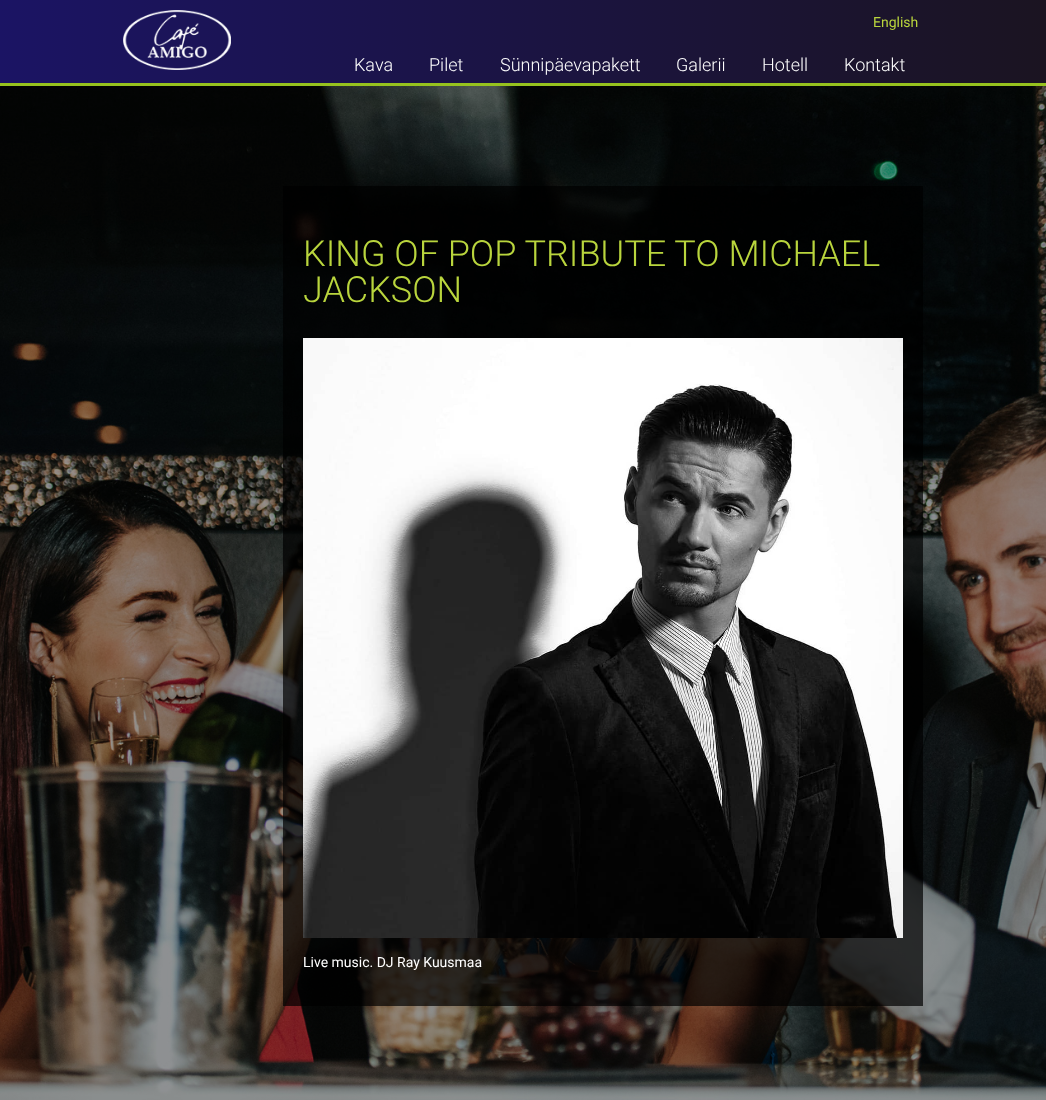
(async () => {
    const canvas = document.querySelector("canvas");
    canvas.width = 1046;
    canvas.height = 1100;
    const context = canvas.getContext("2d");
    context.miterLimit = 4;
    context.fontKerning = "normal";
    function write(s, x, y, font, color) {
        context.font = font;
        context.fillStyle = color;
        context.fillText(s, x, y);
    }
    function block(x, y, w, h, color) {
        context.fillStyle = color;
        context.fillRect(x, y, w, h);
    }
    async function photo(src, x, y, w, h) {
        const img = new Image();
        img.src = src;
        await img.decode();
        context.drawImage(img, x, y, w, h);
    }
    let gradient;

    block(0, 0, 1046, 1100, "rgb(255, 255, 255)");
    await photo("media/1.png", 0, 86, 1046, 1014);
    gradient = context.createLinearGradient(0, 42, 1046, 41);
    gradient.addColorStop(0, "rgb(27, 20, 100)");
    gradient.addColorStop(1, "rgb(27, 20, 33)");
    context.fillStyle = gradient;
    context.fillRect(0, 0, 1046, 83);
    block(0, 83, 1046, 3, "rgb(150, 194, 30)");
    await photo("media/2.png", 123, 10, 108, 60);
    write("English", 873, 27, "14px Roboto", "rgb(185, 213, 61)");
    write("Kava", 354, 71, "300 18px Roboto", "rgb(255, 255, 255)");
    write("Pilet", 429, 71, "300 18px Roboto", "rgb(255, 255, 255)");
    write("Sünnipäevapakett", 500, 71, "300 18px Roboto", "rgb(255, 255, 255)");
    write("Galerii", 676, 71, "300 18px Roboto", "rgb(255, 255, 255)");
    write("Hotell", 762, 71, "300 18px Roboto", "rgb(255, 255, 255)");
    write("Kontakt", 844, 71, "300 18px Roboto", "rgb(255, 255, 255)");
    block(283, 186, 640, 820, "rgba(0, 0, 0, 0.7)");
    write("KING OF POP TRIBUTE TO MICHAEL", 303, 266, "300 36px Roboto", "rgb(185, 213, 61)");
    write("JACKSON", 303, 302, "300 36px Roboto", "rgb(185, 213, 61)");
    await photo("media/3.png", 303, 338, 600, 600);
    write("Live music. DJ Ray Kuusmaa", 303, 967, "14px Roboto", "rgb(255, 255, 255)");
})();
